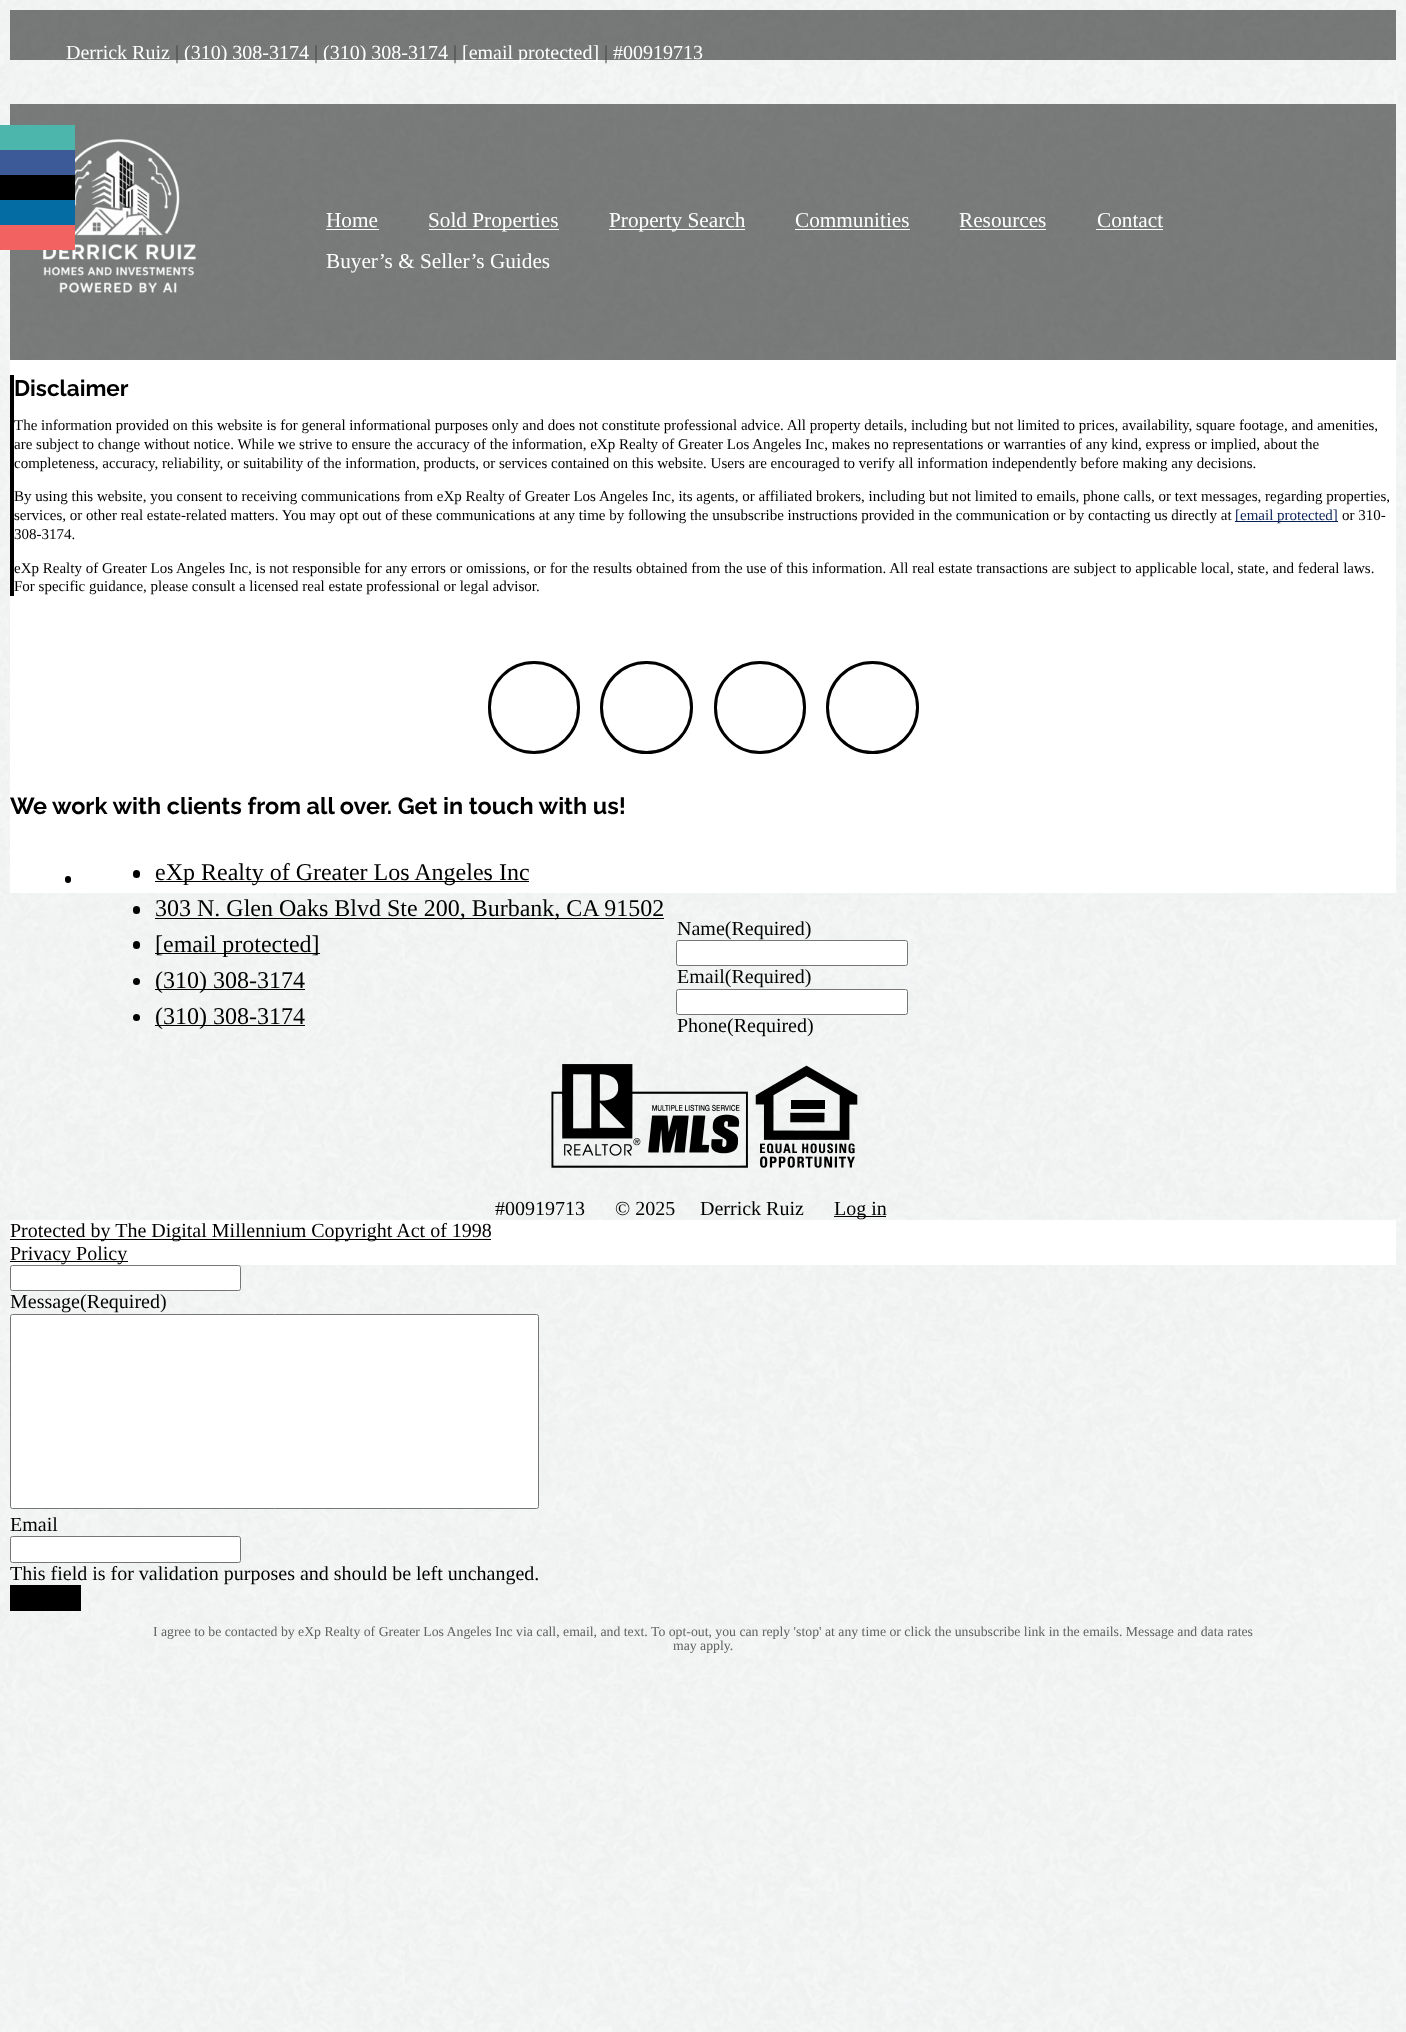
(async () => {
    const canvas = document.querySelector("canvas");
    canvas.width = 1406;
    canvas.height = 2032;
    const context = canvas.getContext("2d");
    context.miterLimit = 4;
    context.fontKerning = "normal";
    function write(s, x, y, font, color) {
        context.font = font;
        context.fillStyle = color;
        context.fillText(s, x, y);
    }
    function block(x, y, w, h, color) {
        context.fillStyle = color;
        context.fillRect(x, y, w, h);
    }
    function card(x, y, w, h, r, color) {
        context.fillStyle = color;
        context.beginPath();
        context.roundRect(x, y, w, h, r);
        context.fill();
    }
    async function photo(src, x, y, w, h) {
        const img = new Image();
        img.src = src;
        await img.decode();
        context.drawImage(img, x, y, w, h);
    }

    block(0, 0, 1406, 2032, "rgb(255, 255, 255)");
    await photo("media/1.png", 0, 0, 1406, 2032);
    block(10, 10, 1386, 50, "rgba(0, 0, 0, 0.51)");
    write("Derrick Ruiz", 66, 59, "20px Liberation Serif", "rgb(255, 255, 255)");
    write("|", 175, 59, "20px Liberation Serif", "rgb(68, 68, 68)");
    block(184, 60, 125, 1, "rgb(255, 255, 255)");
    write("(310) 308-3174", 184, 59, "20px Liberation Serif", "rgb(255, 255, 255)");
    write("|", 314, 59, "20px Liberation Serif", "rgb(68, 68, 68)");
    block(323, 60, 125, 1, "rgb(255, 255, 255)");
    write("(310) 308-3174", 323, 59, "20px Liberation Serif", "rgb(255, 255, 255)");
    write("|", 453, 59, "20px Liberation Serif", "rgb(68, 68, 68)");
    block(463, 60, 136, 1, "rgb(255, 255, 255)");
    write("[email protected]", 462, 59, "20px Liberation Serif", "rgb(255, 255, 255)");
    write("|", 604, 59, "20px Liberation Serif", "rgb(68, 68, 68)");
    write("#00919713", 613, 59, "20px Liberation Serif", "rgb(255, 255, 255)");
    block(10, 104, 1386, 256, "rgba(0, 0, 0, 0.5)");
    await photo("media/2.png", 42, 139, 154, 154);
    write("Home", 326, 227, "21.25px Liberation Serif", "rgb(255, 255, 255)");
    block(326, 229, 53, 1, "rgb(255, 255, 255)");
    block(429, 229, 130, 1, "rgb(255, 255, 255)");
    write("Sold Properties", 428, 227, "21.25px Liberation Serif", "rgb(255, 255, 255)");
    block(609, 229, 136, 1, "rgb(255, 255, 255)");
    write("Property Search", 609, 227, "21.25px Liberation Serif", "rgb(255, 255, 255)");
    write("Communities", 795, 227, "21.25px Liberation Serif", "rgb(255, 255, 255)");
    block(795, 229, 115, 1, "rgb(255, 255, 255)");
    write("Resources", 959, 227, "21.25px Liberation Serif", "rgb(255, 255, 255)");
    block(960, 229, 86, 1, "rgb(255, 255, 255)");
    write("Contact", 1097, 227, "21.25px Liberation Serif", "rgb(255, 255, 255)");
    block(1096, 229, 67, 1, "rgb(255, 255, 255)");
    write("Buyer’s & Seller’s Guides", 326, 268, "21.25px Liberation Serif", "rgb(255, 255, 255)");
    block(10, 360, 1386, 251, "rgba(255, 255, 255, 0.95)");
    block(10, 375, 4, 221, "rgb(0, 0, 0)");
    write("Disclaimer", 14, 396, "bold 22.5px Raleway", "rgb(0, 0, 0)");
    write("The information provided on this website is for general informational purposes only and does not constitute professional advice. All property details, including but not limited to prices, availability, square footage, and amenities,", 14, 430, "15px Liberation Serif", "rgb(0, 0, 0)");
    write("are subject to change without notice. While we strive to ensure the accuracy of the information, eXp Realty of Greater Los Angeles Inc, makes no representations or warranties of any kind, express or implied, about the", 14, 449, "15px Liberation Serif", "rgb(0, 0, 0)");
    write("completeness, accuracy, reliability, or suitability of the information, products, or services contained on this website. Users are encouraged to verify all information independently before making any decisions.", 14, 468, "15px Liberation Serif", "rgb(0, 0, 0)");
    write("By using this website, you consent to receiving communications from eXp Realty of Greater Los Angeles Inc, its agents, or affiliated brokers, including but not limited to emails, phone calls, or text messages, regarding properties,", 14, 501, "15px Liberation Serif", "rgb(0, 0, 0)");
    write("services, or other real estate-related matters. You may opt out of these communications at any time by following the unsubscribe instructions provided in the communication or by contacting us directly at", 14, 520, "15px Liberation Serif", "rgb(0, 0, 0)");
    block(1235, 521, 103, 1, "rgb(8, 32, 84)");
    write("[email protected]", 1235, 520, "15px Liberation Serif", "rgb(8, 32, 84)");
    write("or 310-", 1342, 520, "15px Liberation Serif", "rgb(0, 0, 0)");
    write("308-3174.", 14, 539, "15px Liberation Serif", "rgb(0, 0, 0)");
    write("eXp Realty of Greater Los Angeles Inc, is not responsible for any errors or omissions, or for the results obtained from the use of this information. All real estate transactions are subject to applicable local, state, and federal laws.", 14, 573, "15px Liberation Serif", "rgb(0, 0, 0)");
    write("For specific guidance, please consult a licensed real estate professional or legal advisor.", 14, 591, "15px Liberation Serif", "rgb(0, 0, 0)");
    block(10, 611, 1386, 282, "rgb(255, 255, 255)");
    context.beginPath();
    context.roundRect(489.5, 662.5, 89, 90, 44.5);
    context.strokeStyle = "rgb(0, 0, 0)";
    context.lineWidth = 3;
    context.stroke();
    context.beginPath();
    context.arc(646.5, 707.5, 45, 0, Math.PI * 2);
    context.stroke();
    context.beginPath();
    context.roundRect(715.5, 662.5, 89, 90, 44.5);
    context.stroke();
    context.beginPath();
    context.arc(872.5, 707.5, 45, 0, Math.PI * 2);
    context.stroke();
    write("We work with clients from all over. Get in touch with us!", 10, 814, "bold 23.4px Raleway", "rgb(0, 0, 0)");
    card(65, 876, 6, 7, 3, "rgb(0, 0, 0)");
    card(133, 870, 7, 8, 3.5, "rgb(0, 0, 0)");
    block(155, 881, 374, 1, "rgb(0, 0, 0)");
    write("eXp Realty of Greater Los Angeles Inc", 155, 880, "24px Liberation Serif", "rgb(0, 0, 0)");
    card(133, 906, 7, 8, 3.5, "rgb(0, 0, 0)");
    block(155, 918, 509, 1, "rgb(0, 0, 0)");
    write("303 N. Glen Oaks Blvd Ste 200, Burbank, CA 91502", 155, 916, "24px Liberation Serif", "rgb(0, 0, 0)");
    card(133, 941, 7, 8, 3.5, "rgb(0, 0, 0)");
    block(155, 953, 165, 1, "rgb(0, 0, 0)");
    write("[email protected]", 155, 952, "24px Liberation Serif", "rgb(0, 0, 0)");
    context.beginPath();
    context.arc(136.5, 981.5, 3.5, 0, Math.PI * 2);
    context.fill();
    block(155, 989, 150, 1, "rgb(0, 0, 0)");
    write("(310) 308-3174", 155, 988, "24px Liberation Serif", "rgb(0, 0, 0)");
    context.beginPath();
    context.arc(136.5, 1017.5, 3.5, 0, Math.PI * 2);
    context.fill();
    block(155, 1025, 150, 1, "rgb(0, 0, 0)");
    write("(310) 308-3174", 155, 1024, "24px Liberation Serif", "rgb(0, 0, 0)");
    await photo("media/3.png", 551, 1064, 307, 104);
    write("#00919713", 495, 1215, "20px Liberation Serif", "rgb(0, 0, 0)");
    write("© 2025", 615, 1215, "20px Liberation Serif", "rgb(0, 0, 0)");
    write("Derrick Ruiz", 700, 1215, "20px Liberation Serif", "rgb(0, 0, 0)");
    block(834, 1216, 52, 1, "rgb(0, 0, 0)");
    write("Log in", 834, 1215, "20px Liberation Serif", "rgb(0, 0, 0)");
    block(0, 125, 75, 25, "rgb(77, 182, 172)");
    block(0, 150, 75, 25, "rgb(60, 90, 152)");
    block(0, 175, 75, 25, "rgb(0, 0, 0)");
    block(0, 200, 75, 25, "rgb(4, 107, 163)");
    block(0, 225, 75, 25, "rgb(241, 98, 97)");
    write("Name(Required)", 677, 935, "20px Liberation Serif", "rgb(0, 0, 0)");
    context.fillStyle = "rgb(255, 255, 255)";
    context.beginPath();
    context.roundRect(676.5, 940.5, 231, 25, 2);
    context.fill();
    context.strokeStyle = "rgb(118, 118, 118)";
    context.lineWidth = 1;
    context.stroke();
    write("Email(Required)", 677, 983, "20px Liberation Serif", "rgb(0, 0, 0)");
    context.fillStyle = "rgb(255, 255, 255)";
    context.beginPath();
    context.roundRect(676.5, 989.5, 231, 25, 2);
    context.fill();
    context.stroke();
    write("Phone(Required)", 677, 1032, "20px Liberation Serif", "rgb(0, 0, 0)");
    context.fillStyle = "rgb(255, 255, 255)";
    context.beginPath();
    context.roundRect(10.5, 1265.5, 230, 25, 2);
    context.fill();
    context.stroke();
    write("Message(Required)", 10, 1308, "20px Liberation Serif", "rgb(0, 0, 0)");
    context.fillStyle = "rgb(255, 255, 255)";
    context.beginPath();
    context.roundRect(10.5, 1314.5, 528, 194, 2);
    context.fill();
    context.stroke();
    write("Email", 10, 1531, "20px Liberation Serif", "rgb(0, 0, 0)");
    context.fillStyle = "rgb(255, 255, 255)";
    context.beginPath();
    context.roundRect(10.5, 1536.5, 230, 26, 2);
    context.fill();
    context.stroke();
    write("This field is for validation purposes and should be left unchanged.", 10, 1580, "20px Liberation Serif", "rgb(0, 0, 0)");
    block(10, 1585, 71, 26, "rgb(0, 0, 0)");
    write("I agree to be contacted by eXp Realty of Greater Los Angeles Inc via call, email, and text. To opt-out, you can reply 'stop' at any time or click the unsubscribe link in the emails. Message and data rates", 153, 1636, "13.75px Liberation Serif", "rgb(97, 97, 97)");
    write("may apply.", 673, 1650, "13.75px Liberation Serif", "rgb(97, 97, 97)");
    block(10, 1220, 1386, 45, "rgb(255, 255, 255)");
    block(10, 1239, 481, 1, "rgb(0, 0, 0)");
    write("Protected by The Digital Millennium Copyright Act of 1998", 10, 1237, "20px Liberation Serif", "rgb(0, 0, 0)");
    block(10, 1261, 118, 1, "rgb(0, 0, 0)");
    write("Privacy Policy", 10, 1260, "20px Liberation Serif", "rgb(0, 0, 0)");
})();
